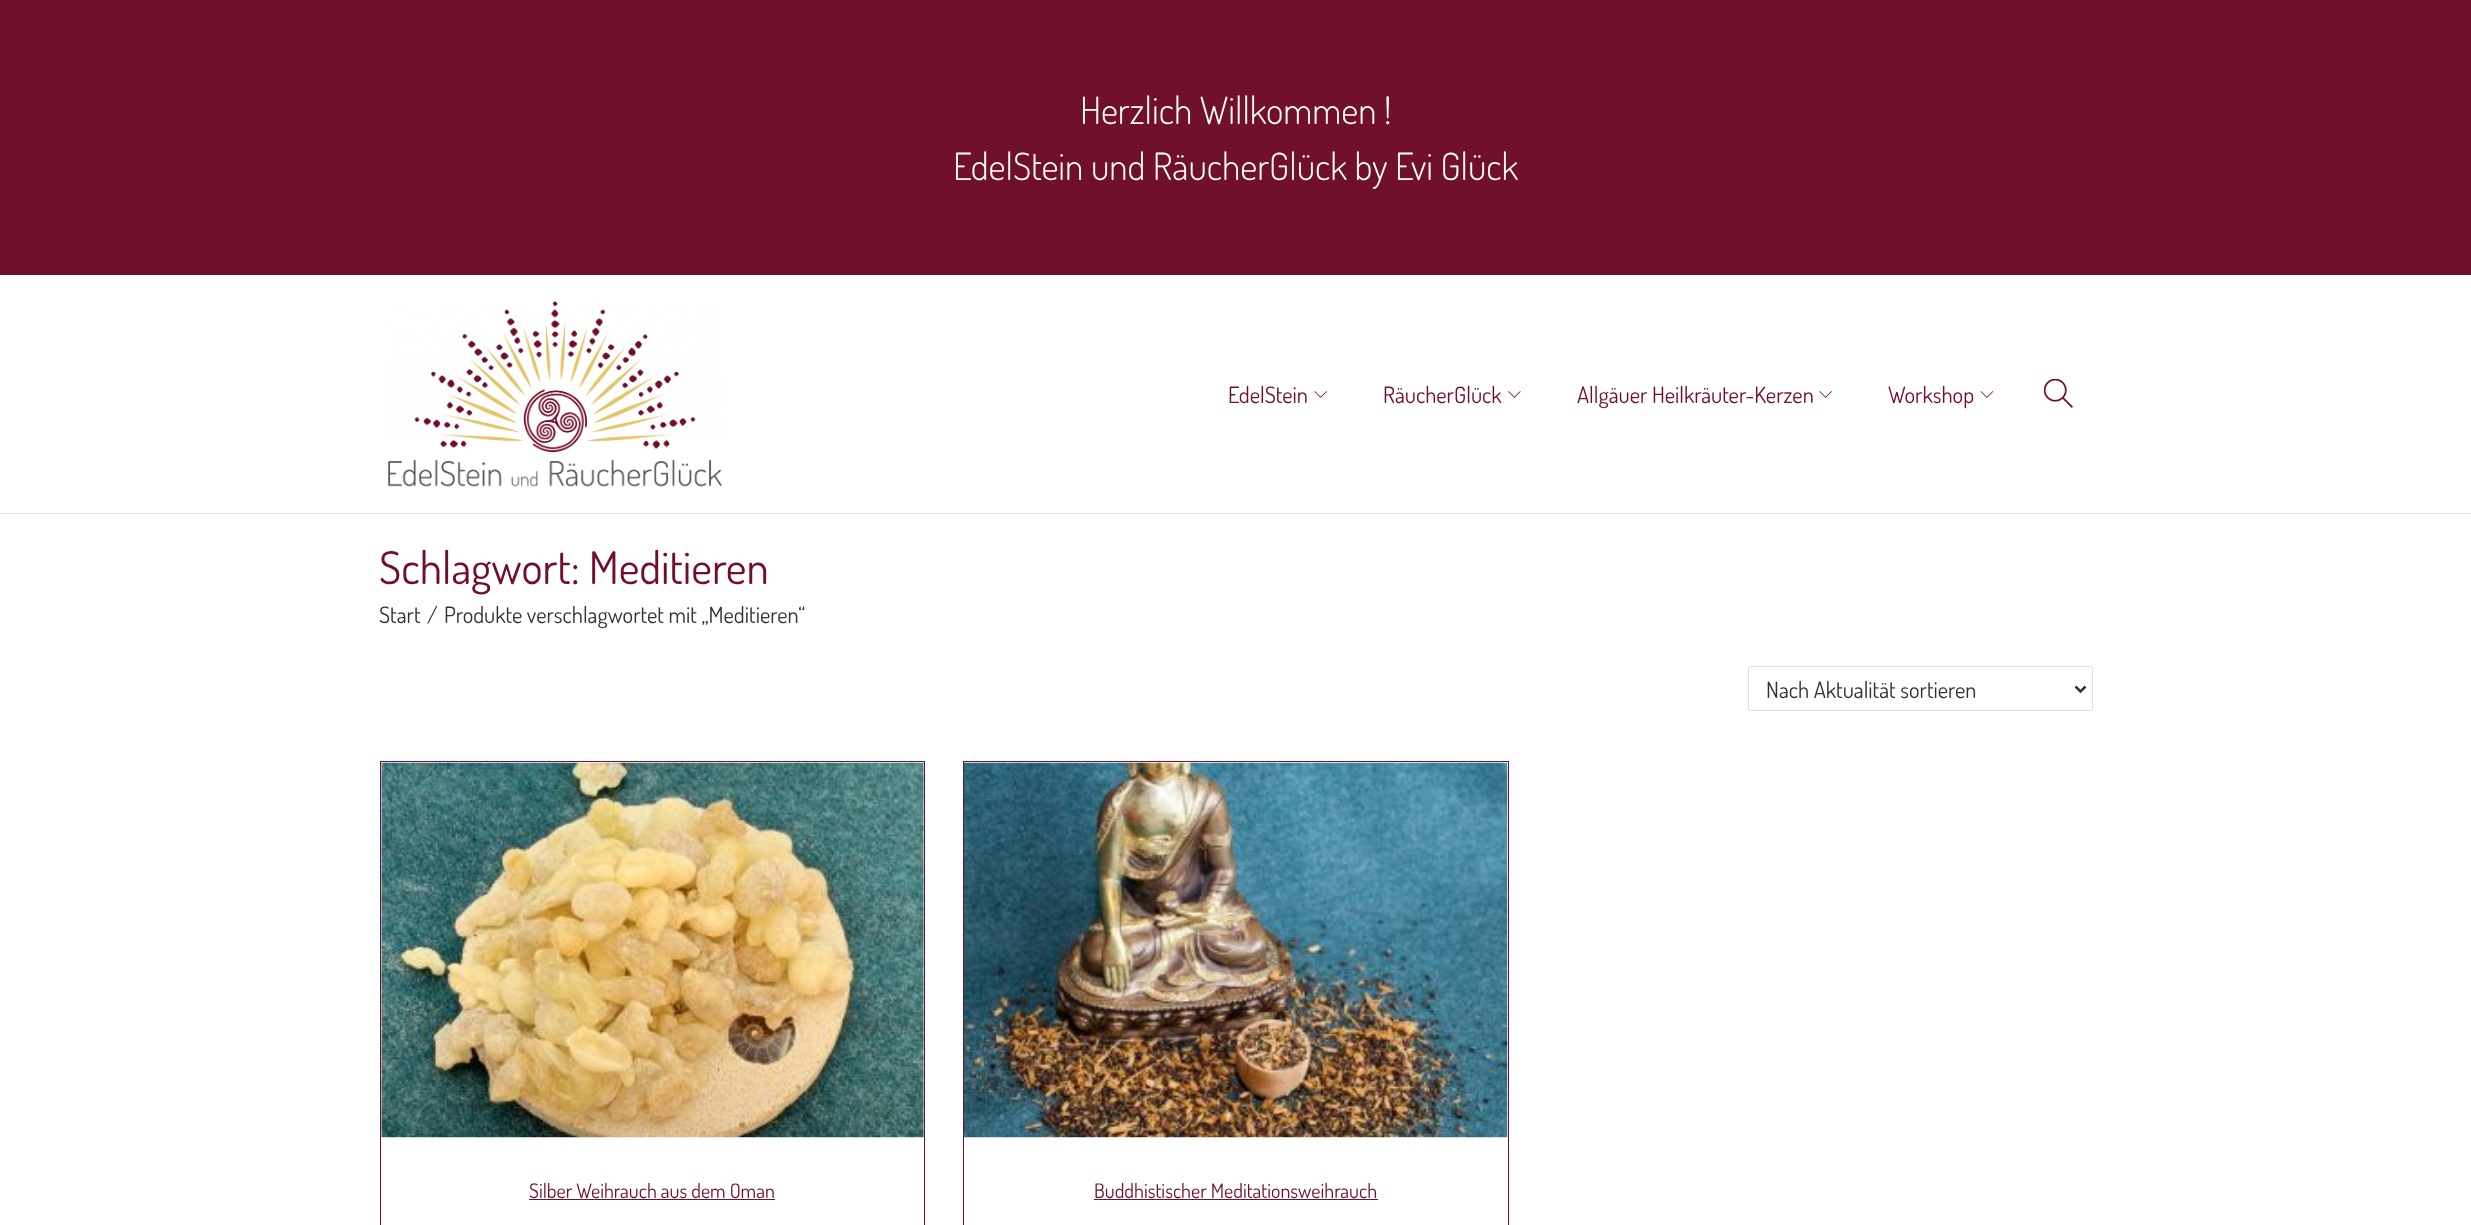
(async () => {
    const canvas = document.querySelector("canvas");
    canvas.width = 2471;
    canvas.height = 1225;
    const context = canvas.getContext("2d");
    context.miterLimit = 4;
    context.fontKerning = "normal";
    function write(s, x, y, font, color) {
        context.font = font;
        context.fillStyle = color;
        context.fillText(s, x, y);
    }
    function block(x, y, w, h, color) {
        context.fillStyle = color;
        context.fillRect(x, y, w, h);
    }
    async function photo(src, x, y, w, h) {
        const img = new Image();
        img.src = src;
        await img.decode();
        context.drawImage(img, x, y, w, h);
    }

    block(0, 0, 2471, 1225, "rgb(255, 255, 255)");
    block(0, 0, 2471, 275, "rgb(113, 16, 43)");
    write("Herzlich Willkommen !", 1080, 124, "300 37.5px Dosis", "rgb(255, 255, 255)");
    write("EdelStein und RäucherGlück by Evi Glück", 953, 180, "300 37.5px Dosis", "rgb(255, 255, 255)");
    block(0, 513, 2471, 1, "rgb(234, 234, 234)");
    await photo("media/1.png", 388, 301, 334, 186);
    write("EdelStein", 1228, 403, "22.5px Dosis", "rgb(113, 15, 42)");
    await photo("media/2.png", 1314, 391, 13, 7);
    write("RäucherGlück", 1383, 403, "22.5px Dosis", "rgb(113, 15, 42)");
    await photo("media/3.png", 1508, 391, 13, 7);
    write("Allgäuer Heilkräuter-Kerzen", 1577, 403, "22.5px Dosis", "rgb(113, 15, 42)");
    await photo("media/2.png", 1819, 391, 13, 7);
    write("Workshop", 1888, 403, "22.5px Dosis", "rgb(113, 15, 42)");
    await photo("media/4.png", 1980, 391, 14, 7);
    await photo("media/5.png", 2044, 379, 29, 29);
    write("Schlagwort: Meditieren", 379, 584, "45px Dosis", "rgb(113, 15, 42)");
    write("Start", 379, 623, "22.5px Dosis", "rgb(51, 51, 51)");
    write("/", 427, 623, "22.5px Dosis", "rgb(51, 51, 51)");
    write("Produkte verschlagwortet mit „Meditieren“", 444, 623, "22.5px Dosis", "rgb(51, 51, 51)");
    context.beginPath();
    context.roundRect(1748.5, 666.5, 344, 44, 2);
    context.strokeStyle = "rgb(221, 221, 221)";
    context.stroke();
    context.beginPath();
    context.moveTo(2075.5, 686.5);
    context.lineTo(2080.5, 691.5);
    context.lineTo(2085.5, 686.5);
    context.strokeStyle = "rgb(51, 51, 51)";
    context.lineWidth = 2.5;
    context.stroke();
    write("Nach Aktualität sortieren", 1766, 698, "22.5px Dosis", "rgb(51, 51, 51)");
    context.strokeStyle = "rgb(113, 16, 43)";
    context.lineWidth = 1;
    context.strokeRect(380.5, 761.5, 544, 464);
    await photo("media/6.png", 381, 762, 543, 376);
    write("Silber Weihrauch aus dem Oman", 529, 1198, "20px Dosis", "rgb(113, 15, 42)");
    block(529, 1199, 246, 1, "rgb(113, 16, 43)");
    context.strokeRect(963.5, 761.5, 545, 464);
    await photo("media/7.png", 963, 762, 545, 376);
    write("Buddhistischer Meditationsweihrauch", 1094, 1198, "20px Dosis", "rgb(113, 15, 42)");
    block(1094, 1199, 284, 1, "rgb(113, 16, 43)");
})();
